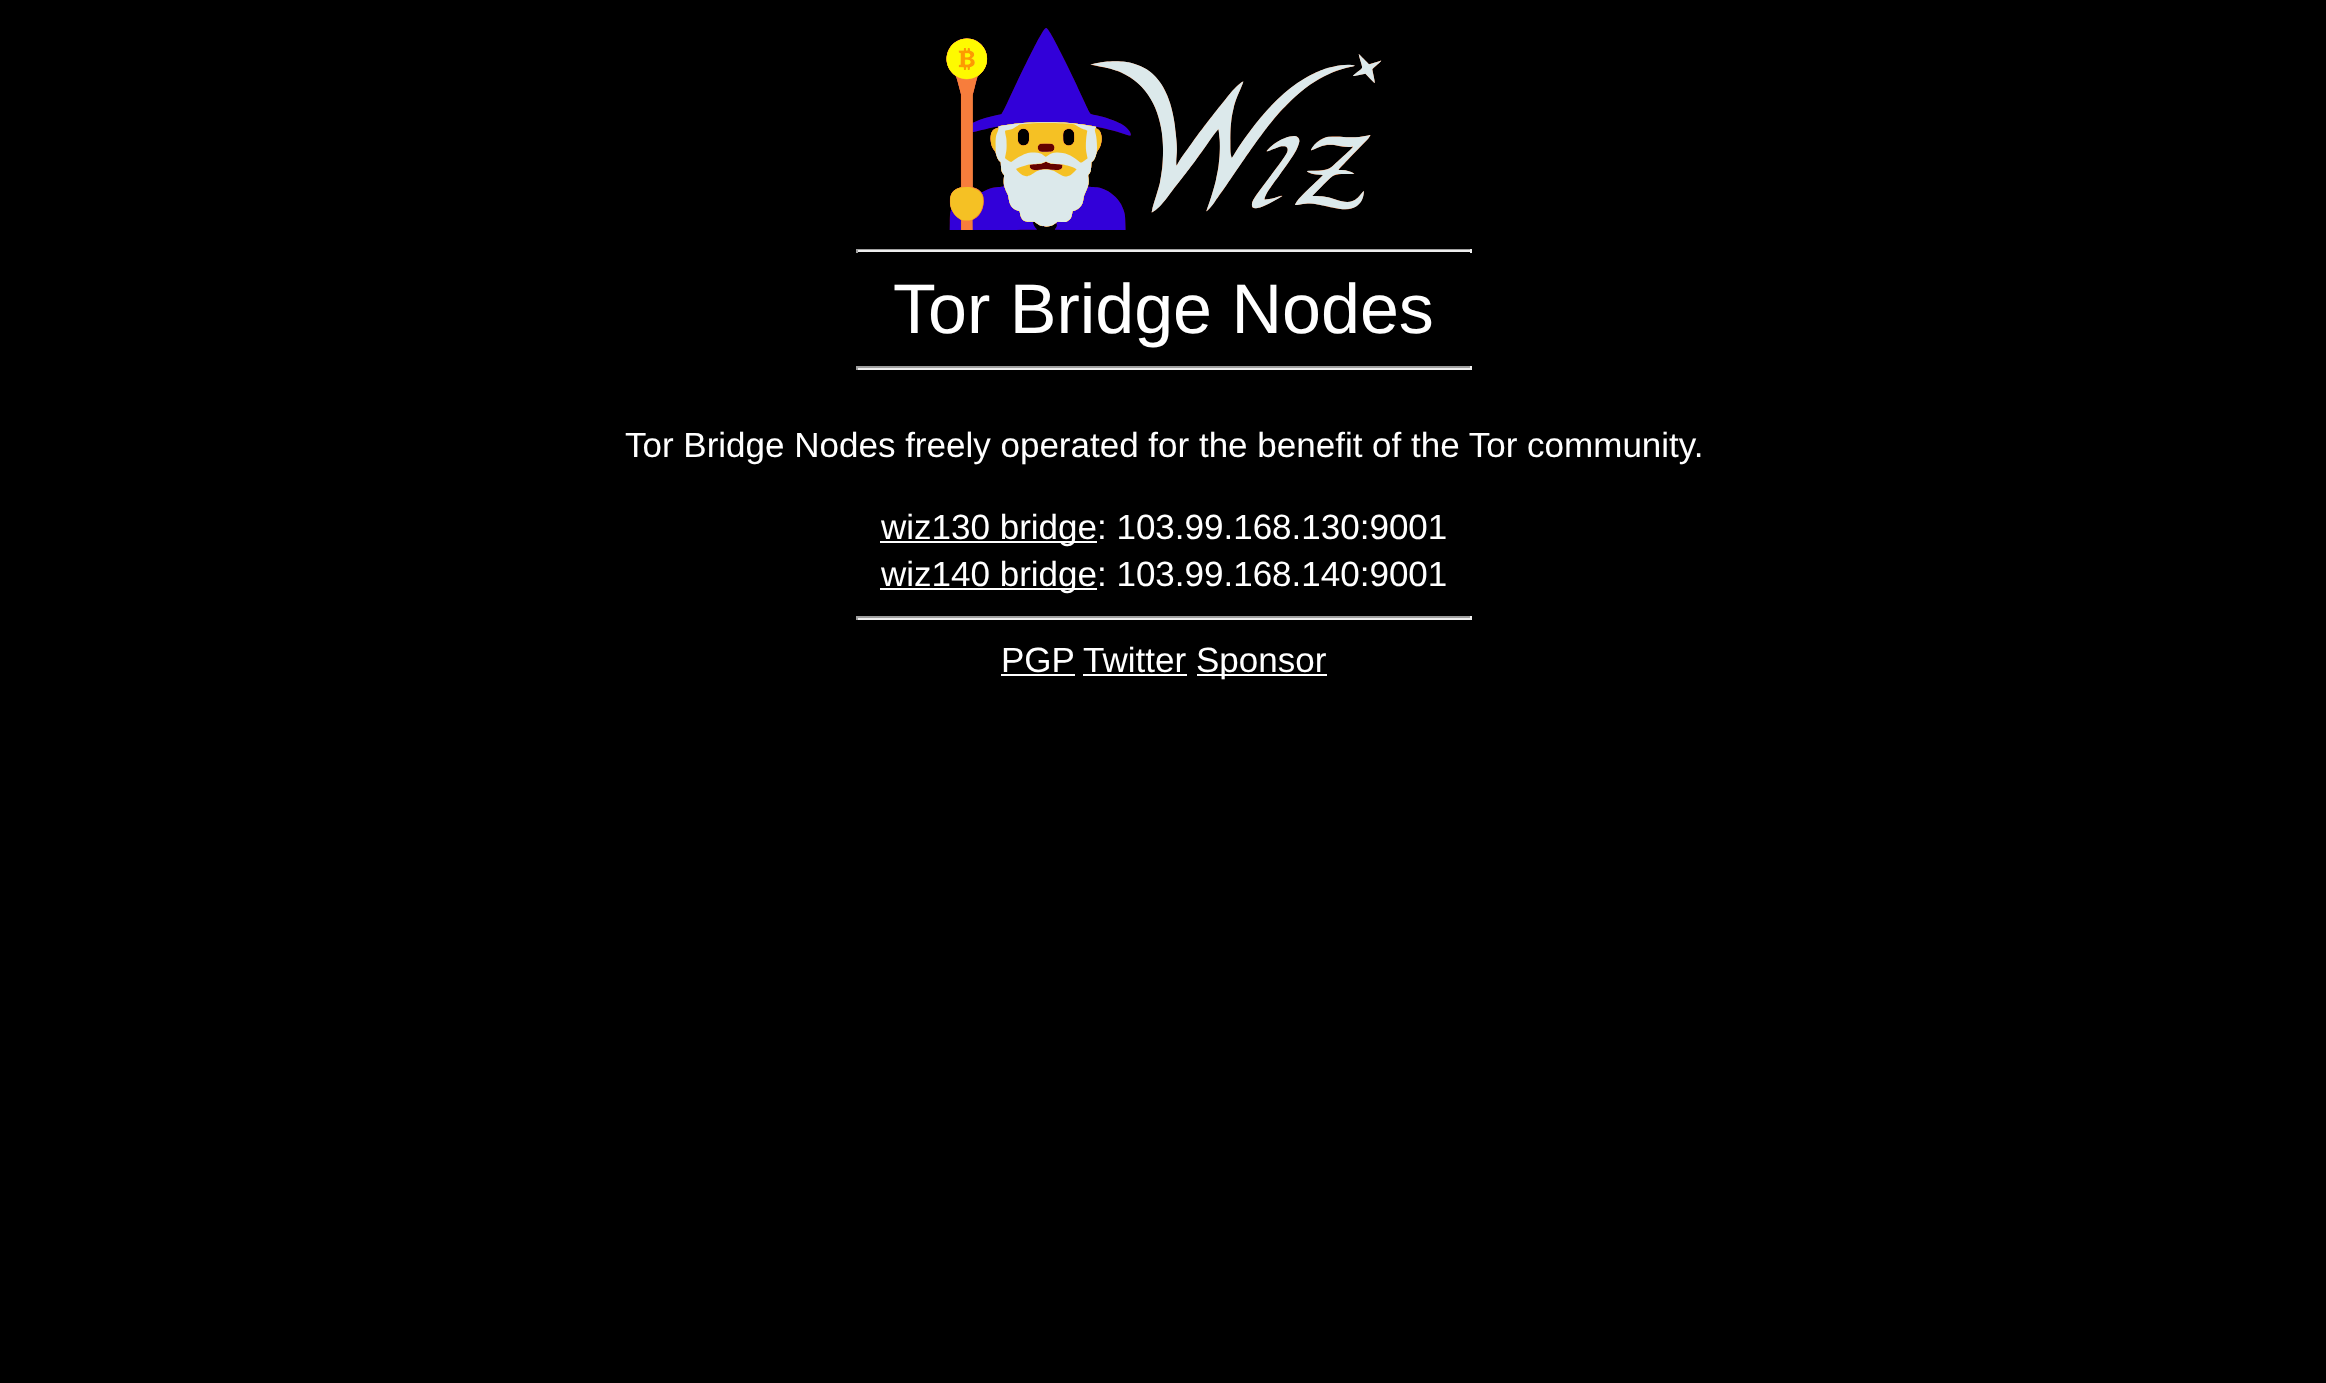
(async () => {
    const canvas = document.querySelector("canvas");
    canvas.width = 2326;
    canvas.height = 1383;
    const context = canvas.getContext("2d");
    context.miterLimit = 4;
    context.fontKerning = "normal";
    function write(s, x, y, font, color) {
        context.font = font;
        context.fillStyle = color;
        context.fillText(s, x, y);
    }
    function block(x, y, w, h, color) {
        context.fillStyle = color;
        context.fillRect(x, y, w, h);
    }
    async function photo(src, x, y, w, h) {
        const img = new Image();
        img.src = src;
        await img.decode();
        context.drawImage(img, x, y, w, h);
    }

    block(0, 0, 2326, 1383, "rgb(0, 0, 0)");
    await photo("media/1.png", 946, 28, 436, 202);
    block(856, 249, 616, 1, "rgb(159, 159, 159)");
    block(1470, 249, 2, 4, "rgb(238, 238, 238)");
    block(856, 250, 616, 2, "rgb(238, 238, 238)");
    block(856, 249, 2, 4, "rgb(159, 159, 159)");
    write("Tor Bridge Nodes", 893, 333, "70px Liberation Sans", "rgb(255, 255, 255)");
    block(856, 366, 616, 2, "rgb(159, 159, 159)");
    block(1470, 366, 2, 4, "rgb(238, 238, 238)");
    block(856, 368, 616, 2, "rgb(238, 238, 238)");
    block(856, 366, 2, 4, "rgb(159, 159, 159)");
    write("Tor Bridge Nodes freely operated for the benefit of the Tor community.", 625, 457, "35px Liberation Sans", "rgb(255, 255, 255)");
    block(880, 541, 217, 2, "rgb(255, 255, 255)");
    write("wiz130 bridge: 103.99.168.130:9001", 881, 539, "35px Liberation Sans", "rgb(255, 255, 255)");
    block(880, 588, 217, 2, "rgb(255, 255, 255)");
    write("wiz140 bridge: 103.99.168.140:9001", 881, 586, "35px Liberation Sans", "rgb(255, 255, 255)");
    block(856, 616, 616, 2, "rgb(159, 159, 159)");
    block(1470, 616, 2, 4, "rgb(238, 238, 238)");
    block(856, 618, 616, 2, "rgb(238, 238, 238)");
    block(856, 616, 2, 4, "rgb(159, 159, 159)");
    write("PGP", 1001, 672, "35px Liberation Sans", "rgb(255, 255, 255)");
    block(1001, 674, 74, 2, "rgb(255, 255, 255)");
    write("Twitter", 1083, 672, "35px Liberation Sans", "rgb(255, 255, 255)");
    block(1083, 674, 104, 2, "rgb(255, 255, 255)");
    block(1197, 674, 130, 2, "rgb(255, 255, 255)");
    write("Sponsor", 1196, 672, "35px Liberation Sans", "rgb(255, 255, 255)");
})();
